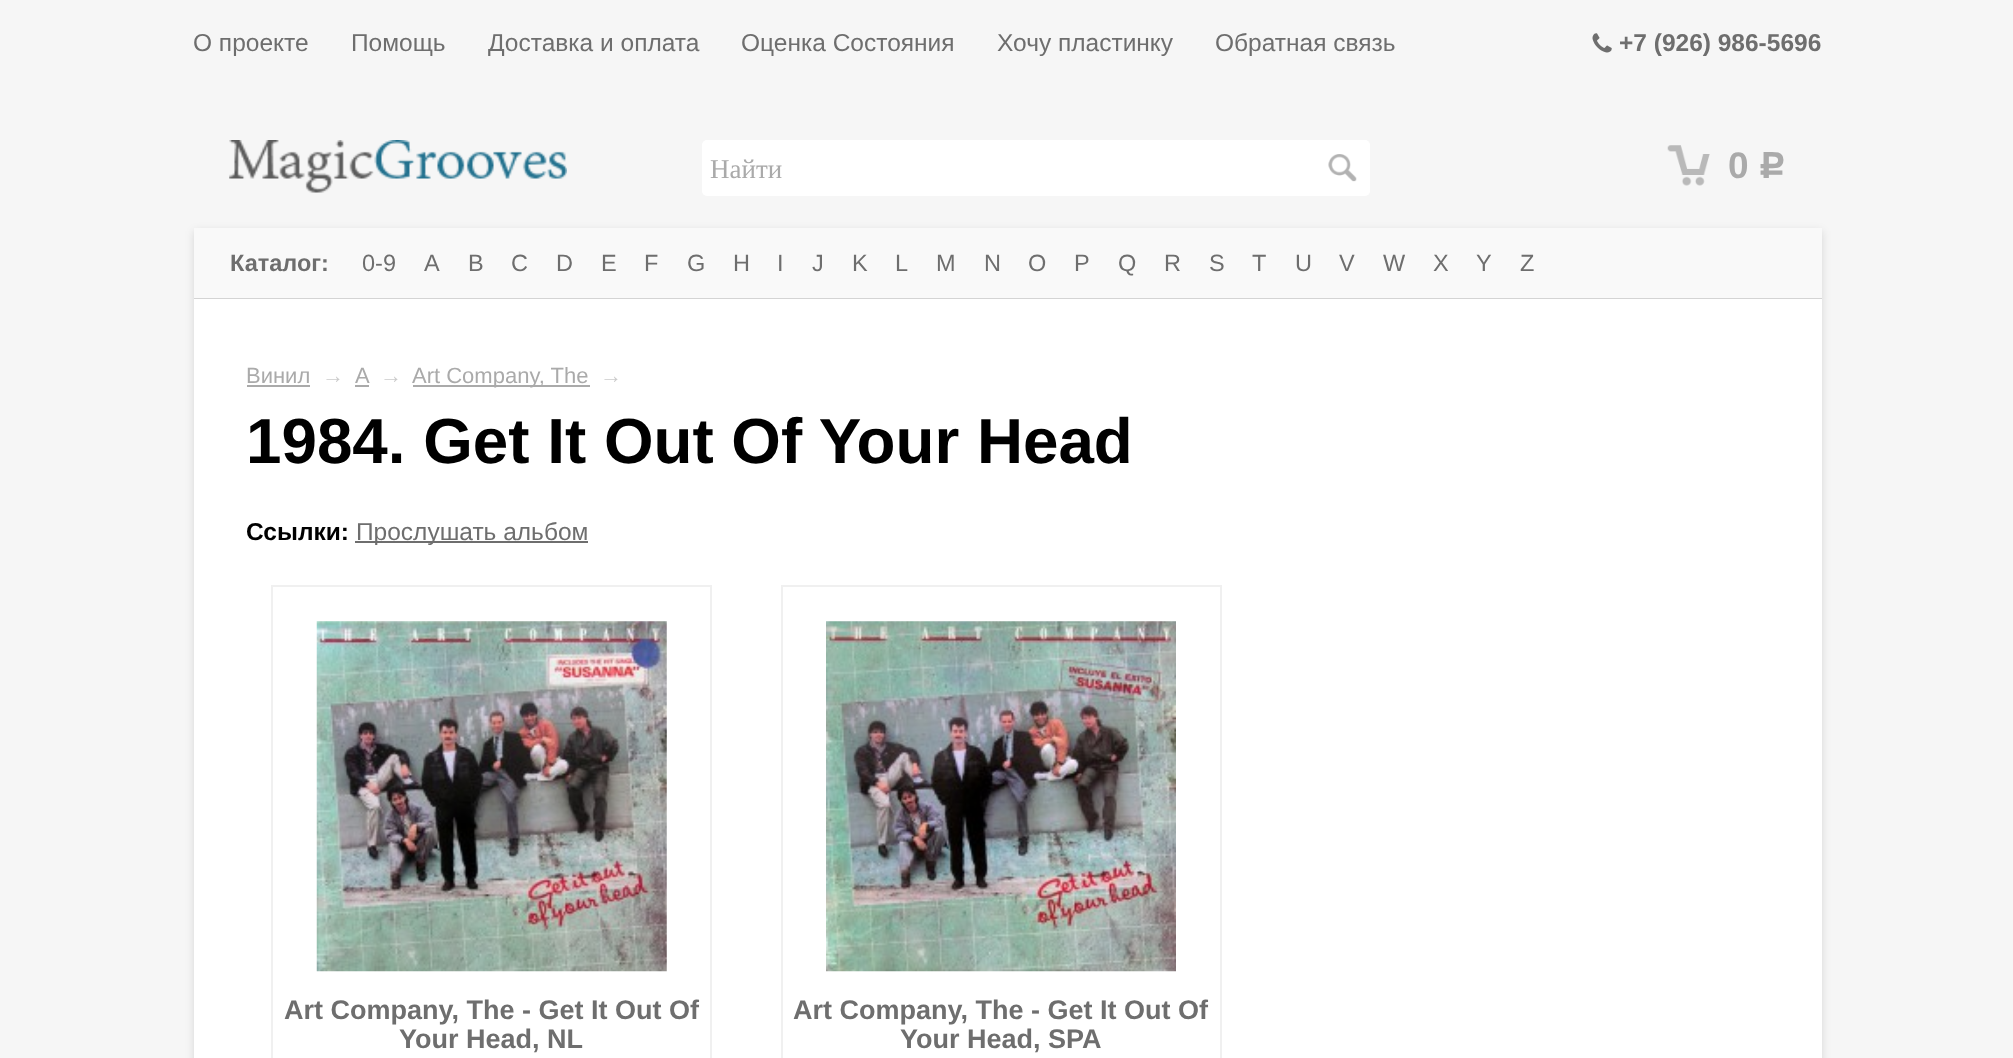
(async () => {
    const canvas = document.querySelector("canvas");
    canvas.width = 2013;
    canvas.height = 1058;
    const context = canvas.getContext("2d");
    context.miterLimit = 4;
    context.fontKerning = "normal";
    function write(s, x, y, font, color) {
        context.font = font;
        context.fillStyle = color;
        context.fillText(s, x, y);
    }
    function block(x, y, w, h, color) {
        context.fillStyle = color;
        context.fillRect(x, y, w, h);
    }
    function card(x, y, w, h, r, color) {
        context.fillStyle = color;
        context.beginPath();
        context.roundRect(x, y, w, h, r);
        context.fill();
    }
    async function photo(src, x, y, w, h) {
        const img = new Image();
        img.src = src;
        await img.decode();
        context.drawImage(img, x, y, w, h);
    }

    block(0, 0, 2013, 1058, "rgb(246, 246, 246)");
    write("О проекте", 193, 51, "24.5px Liberation Sans", "rgb(110, 110, 110)");
    write("Помощь", 351, 51, "24.5px Liberation Sans", "rgb(110, 110, 110)");
    write("Доставка и оплата", 488, 51, "24.5px Liberation Sans", "rgb(110, 110, 110)");
    write("Оценка Состояния", 741, 51, "24.5px Liberation Sans", "rgb(110, 110, 110)");
    write("Хочу пластинку", 997, 51, "24.5px Liberation Sans", "rgb(110, 110, 110)");
    write("Обратная связь", 1215, 51, "24.5px Liberation Sans", "rgb(110, 110, 110)");
    await photo("media/1.png", 1592, 33, 20, 20);
    write("+7 (926) 986-5696", 1619, 51, "bold 24.5px Liberation Sans", "rgb(110, 110, 110)");
    await photo("media/2.png", 229, 140, 338, 53);
    card(702, 140, 668, 56, 5, "rgb(255, 255, 255)");
    write("Найти", 710, 178, "27px Liberation Serif", "rgb(170, 170, 170)");
    await photo("media/3.png", 1328, 154, 29, 28);
    await photo("media/4.png", 1667, 145, 43, 41);
    write("0", 1728, 178, "bold 37px Liberation Sans", "rgb(170, 170, 170)");
    write("Р", 1758, 178, "bold 37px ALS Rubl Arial", "rgb(170, 170, 170)");
    context.fillStyle = "rgba(0, 0, 0, 0.13)";
    context.filter = "blur(4.5px)";
    context.beginPath();
    context.rect(194, 231, 1628, 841);
    context.fill();
    context.filter = "none";
    block(194, 228, 1628, 71, "rgb(249, 249, 249)");
    block(194, 298, 1628, 1, "rgba(0, 0, 0, 0.15)");
    write("Каталог:", 230, 271, "bold 23.5px Liberation Sans", "rgb(110, 110, 110)");
    write("0-9", 362, 271, "23.5px Liberation Sans", "rgb(110, 110, 110)");
    write("A", 424, 271, "23.5px Liberation Sans", "rgb(110, 110, 110)");
    write("B", 468, 271, "23.5px Liberation Sans", "rgb(110, 110, 110)");
    write("C", 511, 271, "23.5px Liberation Sans", "rgb(110, 110, 110)");
    write("D", 556, 271, "23.5px Liberation Sans", "rgb(110, 110, 110)");
    write("E", 601, 271, "23.5px Liberation Sans", "rgb(110, 110, 110)");
    write("F", 644, 271, "23.5px Liberation Sans", "rgb(110, 110, 110)");
    write("G", 687, 271, "23.5px Liberation Sans", "rgb(110, 110, 110)");
    write("H", 733, 271, "23.5px Liberation Sans", "rgb(110, 110, 110)");
    write("I", 777, 271, "23.5px Liberation Sans", "rgb(110, 110, 110)");
    write("J", 812, 271, "23.5px Liberation Sans", "rgb(110, 110, 110)");
    write("K", 852, 271, "23.5px Liberation Sans", "rgb(110, 110, 110)");
    write("L", 895, 271, "23.5px Liberation Sans", "rgb(110, 110, 110)");
    write("M", 936, 271, "23.5px Liberation Sans", "rgb(110, 110, 110)");
    write("N", 984, 271, "23.5px Liberation Sans", "rgb(110, 110, 110)");
    write("O", 1028, 271, "23.5px Liberation Sans", "rgb(110, 110, 110)");
    write("P", 1074, 271, "23.5px Liberation Sans", "rgb(110, 110, 110)");
    write("Q", 1118, 271, "23.5px Liberation Sans", "rgb(110, 110, 110)");
    write("R", 1164, 271, "23.5px Liberation Sans", "rgb(110, 110, 110)");
    write("S", 1209, 271, "23.5px Liberation Sans", "rgb(110, 110, 110)");
    write("T", 1252, 271, "23.5px Liberation Sans", "rgb(110, 110, 110)");
    write("U", 1295, 271, "23.5px Liberation Sans", "rgb(110, 110, 110)");
    write("V", 1339, 271, "23.5px Liberation Sans", "rgb(110, 110, 110)");
    write("W", 1383, 271, "23.5px Liberation Sans", "rgb(110, 110, 110)");
    write("X", 1433, 271, "23.5px Liberation Sans", "rgb(110, 110, 110)");
    write("Y", 1476, 271, "23.5px Liberation Sans", "rgb(110, 110, 110)");
    write("Z", 1520, 271, "23.5px Liberation Sans", "rgb(110, 110, 110)");
    block(194, 299, 1628, 759, "rgb(255, 255, 255)");
    write("Винил", 246, 383, "22px Liberation Sans", "rgb(170, 170, 170)");
    block(247, 385, 63, 2, "rgb(170, 170, 170)");
    write("→", 322, 383, "22px Liberation Sans", "rgb(204, 204, 204)");
    write("A", 355, 383, "22px Liberation Sans", "rgb(170, 170, 170)");
    block(355, 385, 14, 2, "rgb(170, 170, 170)");
    write("→", 380, 383, "22px Liberation Sans", "rgb(204, 204, 204)");
    block(413, 385, 177, 2, "rgb(170, 170, 170)");
    write("Art Company, The", 412, 383, "22px Liberation Sans", "rgb(170, 170, 170)");
    write("→", 600, 383, "22px Liberation Sans", "rgb(204, 204, 204)");
    write("1984. Get It Out Of Your Head", 246, 463, "bold 63.75px Liberation Sans", "rgb(0, 0, 0)");
    write("Ссылки:", 246, 540, "bold 24.5px Liberation Sans", "rgb(0, 0, 0)");
    block(355, 541, 233, 2, "rgb(110, 110, 110)");
    write("Прослушать альбом", 356, 540, "24.5px Liberation Sans", "rgb(110, 110, 110)");
    context.strokeStyle = "rgb(240, 240, 240)";
    context.lineWidth = 2;
    context.strokeRect(272, 586, 439, 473);
    await photo("media/5.png", 316, 621, 351, 351);
    write("Art Company, The - Get It Out Of", 284, 1019, "bold 27px Liberation Sans", "rgb(110, 110, 110)");
    write("Your Head, NL", 399, 1048, "bold 27px Liberation Sans", "rgb(110, 110, 110)");
    context.strokeRect(782, 586, 439, 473);
    await photo("media/6.png", 826, 621, 350, 351);
    write("Art Company, The - Get It Out Of", 793, 1019, "bold 27px Liberation Sans", "rgb(110, 110, 110)");
    write("Your Head, SPA", 900, 1048, "bold 27px Liberation Sans", "rgb(110, 110, 110)");
})();
